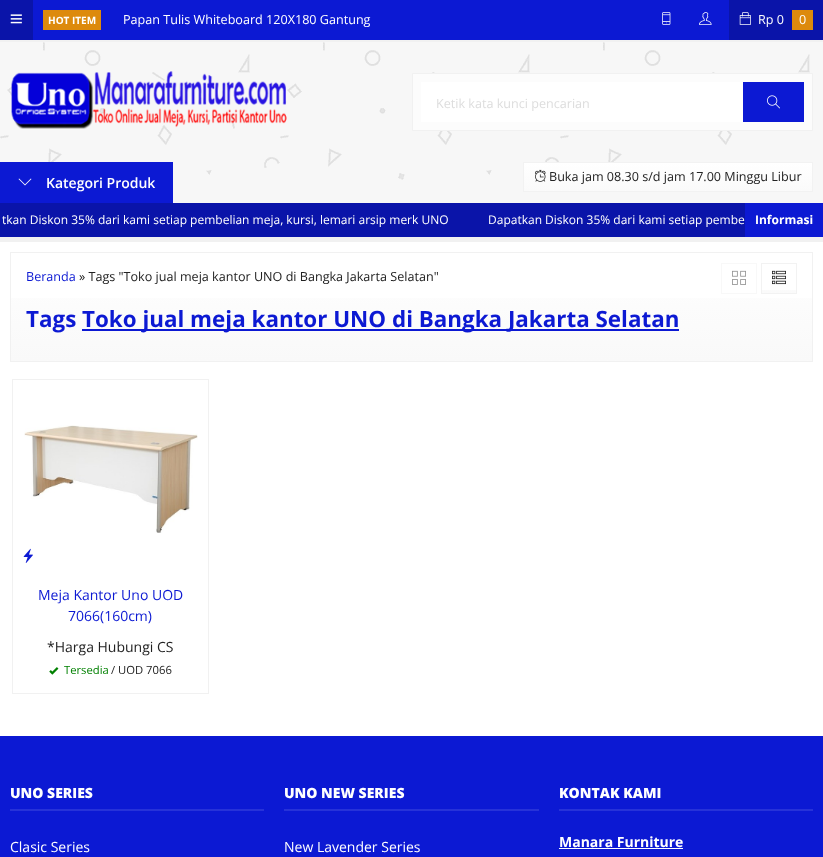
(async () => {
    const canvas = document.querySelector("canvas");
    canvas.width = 823;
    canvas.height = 857;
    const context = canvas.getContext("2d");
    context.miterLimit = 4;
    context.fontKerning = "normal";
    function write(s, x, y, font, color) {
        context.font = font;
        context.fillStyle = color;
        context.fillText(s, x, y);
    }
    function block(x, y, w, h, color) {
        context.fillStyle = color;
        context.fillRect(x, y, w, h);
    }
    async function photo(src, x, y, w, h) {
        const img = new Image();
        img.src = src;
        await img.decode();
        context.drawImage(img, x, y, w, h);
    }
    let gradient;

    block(0, 0, 823, 857, "rgb(241, 241, 241)");
    block(33, 0, 696, 40, "rgb(12, 25, 211)");
    block(0, 0, 33, 40, "rgb(10, 20, 169)");
    await photo("media/1.png", 10, 14, 12, 10);
    block(43, 10, 58, 20, "rgb(221, 138, 13)");
    write("HOT ITEM", 48, 24, "bold 10px Open Sans", "rgb(255, 255, 255)");
    write("Papan Tulis Whiteboard 120X180 Gantung", 123, 24, "12.6px Open Sans", "rgb(255, 255, 255)");
    await photo("media/2.png", 662, 12, 9, 13);
    await photo("media/3.png", 699, 12, 13, 13);
    block(729, 0, 94, 40, "rgb(10, 20, 169)");
    await photo("media/4.png", 739, 12, 12, 13);
    write("Rp 0", 758, 24, "12.6px Open Sans", "rgb(255, 255, 255)");
    block(792, 10, 21, 20, "rgb(221, 138, 13)");
    write("0", 799, 24, "12.6px Open Sans", "rgb(255, 255, 255)");
    block(0, 42, 823, 161, "rgb(247, 247, 247)");
    await photo("media/5.png", 0, 42, 810, 138);
    await photo("media/6.png", 11, 71, 276, 58);
    context.fillStyle = "rgb(252, 252, 252)";
    context.beginPath();
    context.rect(412.5, 73.5, 400, 57);
    context.fill();
    context.strokeStyle = "rgb(241, 241, 241)";
    context.stroke();
    block(421, 82, 322, 40, "rgb(255, 255, 255)");
    write("Ketik kata kunci pencarian", 436, 108, "12.6px Open Sans", "rgb(221, 221, 221)");
    block(743, 82, 61, 40, "rgb(12, 25, 211)");
    await photo("media/7.png", 767, 95, 13, 14);
    block(0, 162, 173, 41, "rgb(12, 25, 211)");
    await photo("media/8.png", 18, 178, 14, 8);
    write("Kategori Produk", 46, 188, "600 14px Open Sans", "rgb(255, 255, 255)");
    gradient = context.createLinearGradient(668, 191, 668, 163);
    gradient.addColorStop(0, "rgb(250, 250, 250)");
    gradient.addColorStop(1, "rgb(255, 255, 255)");
    context.fillStyle = gradient;
    context.fillRect(524, 163, 288, 28);
    context.strokeStyle = "rgb(242, 242, 242)";
    context.strokeRect(523.5, 162.5, 289, 29);
    await photo("media/9.png", 535, 169, 11, 13);
    write("Buka jam 08.30 s/d jam 17.00 Minggu Libur", 549, 181, "12.6px Open Sans", "rgb(34, 34, 34)");
    block(0, 203, 745, 34, "rgb(10, 20, 169)");
    write("tkan Diskon 35% dari kami setiap pembelian meja, kursi, lemari arsip merk UNO", 2, 224, "12px Open Sans", "rgb(255, 255, 255)");
    write("Dapatkan Diskon 35% dari kami setiap pembe", 488, 224, "12px Open Sans", "rgb(255, 255, 255)");
    block(745, 203, 78, 34, "rgb(12, 25, 211)");
    write("Informasi", 755, 224, "bold 12px Open Sans", "rgb(255, 255, 255)");
    block(0, 242, 823, 494, "rgb(255, 255, 255)");
    gradient = context.createLinearGradient(412, 253, 412, 361);
    gradient.addColorStop(0, "rgb(255, 255, 255)");
    gradient.addColorStop(1, "rgb(249, 249, 249)");
    context.fillStyle = gradient;
    context.fillRect(11, 298, 801, 63);
    context.strokeStyle = "rgb(241, 241, 241)";
    context.strokeRect(10.5, 252.5, 802, 109);
    write("Beranda", 26, 281, "12.6px Open Sans", "rgb(12, 25, 211)");
    write("» Tags \"Toko jual meja kantor UNO di Bangka Jakarta Selatan\"", 79, 281, "12.6px Open Sans", "rgb(34, 34, 34)");
    context.strokeStyle = "rgb(248, 248, 248)";
    context.strokeRect(721.5, 263.5, 35, 30);
    gradient = context.createLinearGradient(779, 293, 779, 264);
    gradient.addColorStop(0, "rgb(250, 250, 250)");
    gradient.addColorStop(1, "rgb(255, 255, 255)");
    context.fillStyle = gradient;
    context.fillRect(762, 290, 34, 3);
    context.strokeStyle = "rgb(242, 242, 242)";
    context.strokeRect(761.5, 263.5, 35, 30);
    await photo("media/10.png", 732, 270, 14, 15);
    await photo("media/11.png", 772, 270, 14, 15);
    write("Tags", 26, 327, "bold 22.4px Open Sans", "rgb(12, 25, 211)");
    block(82, 329, 597, 2, "rgb(12, 25, 211)");
    write("Toko jual meja kantor UNO di Bangka Jakarta Selatan", 82, 327, "bold 22.4px Open Sans", "rgb(12, 25, 211)");
    context.strokeStyle = "rgb(241, 241, 241)";
    context.strokeRect(12.5, 379.5, 196, 314);
    await photo("media/12.png", 24, 425, 174, 108);
    await photo("media/13.png", 23, 548, 10, 15);
    write("Meja Kantor Uno UOD", 38, 600, "14px Open Sans", "rgb(12, 25, 211)");
    write("7066(160cm)", 68, 621, "14px Open Sans", "rgb(12, 25, 211)");
    write("*Harga Hubungi CS", 47, 652, "14px Open Sans", "rgb(34, 34, 34)");
    await photo("media/14.png", 49, 667, 10, 8);
    write("Tersedia", 64, 674, "11.25px Open Sans", "rgb(0, 128, 0)");
    write("/ UOD 7066", 111, 674, "11.25px Open Sans", "rgb(34, 34, 34)");
    block(0, 736, 823, 121, "rgb(12, 25, 211)");
    block(10, 809, 254, 2, "rgb(39, 50, 216)");
    write("UNO SERIES", 10, 798, "800 14px Open Sans", "rgb(255, 255, 255)");
    write("Clasic Series", 10, 852, "14px Open Sans", "rgb(255, 255, 255)");
    block(284, 809, 255, 2, "rgb(39, 50, 216)");
    write("UNO NEW SERIES", 284, 798, "800 14px Open Sans", "rgb(255, 255, 255)");
    write("New Lavender Series", 284, 852, "14px Open Sans", "rgb(255, 255, 255)");
    block(559, 809, 254, 2, "rgb(39, 50, 216)");
    write("KONTAK KAMI", 559, 798, "800 14px Open Sans", "rgb(255, 255, 255)");
    write("Manara Furniture", 559, 847, "bold 14px Open Sans", "rgb(255, 255, 255)");
    block(559, 848, 124, 1, "rgb(255, 255, 255)");
})();
